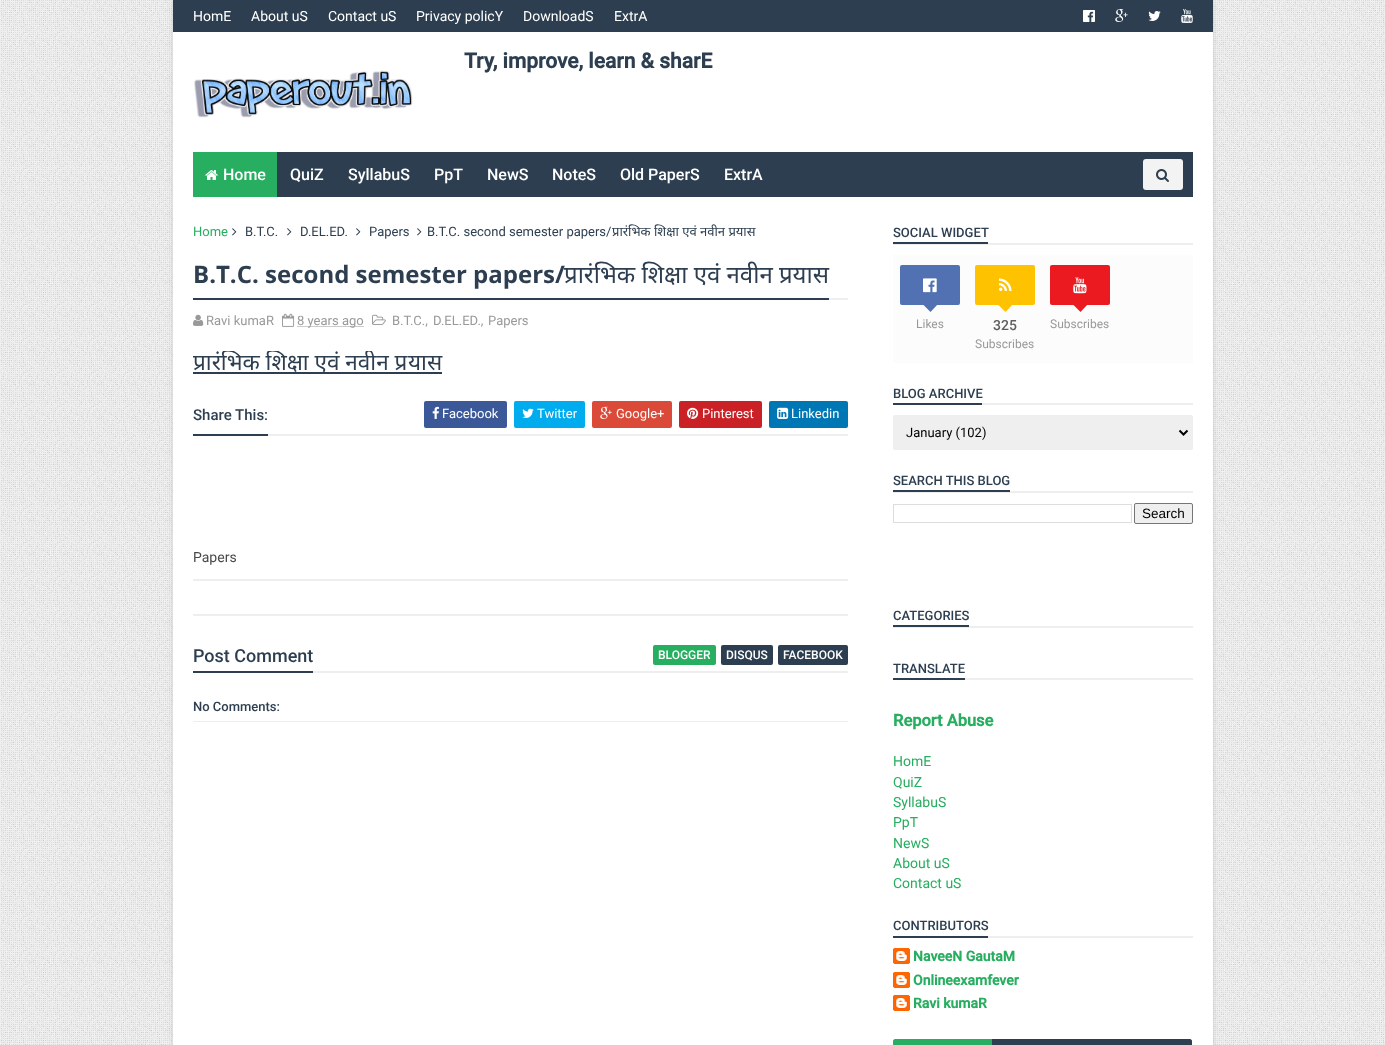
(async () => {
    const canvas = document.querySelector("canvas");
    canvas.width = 1385;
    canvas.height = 1045;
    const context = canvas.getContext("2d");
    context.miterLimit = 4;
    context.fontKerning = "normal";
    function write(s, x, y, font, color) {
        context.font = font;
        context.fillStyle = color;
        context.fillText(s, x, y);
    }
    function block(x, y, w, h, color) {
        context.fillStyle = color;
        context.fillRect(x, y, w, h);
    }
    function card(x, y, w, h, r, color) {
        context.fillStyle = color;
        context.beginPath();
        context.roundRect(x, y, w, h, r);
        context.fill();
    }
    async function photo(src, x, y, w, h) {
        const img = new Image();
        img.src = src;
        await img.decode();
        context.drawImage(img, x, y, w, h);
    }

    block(0, 0, 1385, 1045, "rgb(255, 255, 255)");
    await photo("media/1.png", 0, 0, 1385, 1045);
    context.fillStyle = "rgb(204, 204, 204)";
    context.filter = "blur(2.5px)";
    context.beginPath();
    context.rect(173, 0, 1040, 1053);
    context.fill();
    context.filter = "none";
    block(173, 32, 1040, 1013, "rgb(255, 255, 255)");
    block(173, 0, 1040, 32, "rgb(44, 62, 80)");
    write("HomE", 193, 21, "14px Roboto", "rgb(255, 255, 255)");
    write("About uS", 251, 21, "14px Roboto", "rgb(255, 255, 255)");
    write("Contact uS", 328, 21, "14px Roboto", "rgb(255, 255, 255)");
    write("Privacy policY", 416, 21, "14px Roboto", "rgb(255, 255, 255)");
    write("DownloadS", 523, 21, "14px Roboto", "rgb(255, 255, 255)");
    write("ExtrA", 614, 21, "14px Roboto", "rgb(255, 255, 255)");
    await photo("media/2.png", 1083, 10, 12, 12);
    await photo("media/3.png", 1115, 9, 13, 13);
    await photo("media/4.png", 1148, 11, 13, 10);
    await photo("media/5.png", 1181, 9, 12, 14);
    write("Try, improve, learn & sharE", 464, 68, "bold 21px Roboto", "rgb(44, 62, 80)");
    await photo("media/6.png", 194, 70, 219, 48);
    block(277, 152, 916, 45, "rgb(44, 62, 80)");
    block(193, 152, 84, 45, "rgb(39, 174, 96)");
    await photo("media/7.png", 205, 170, 13, 10);
    write("Home", 223, 180, "500 16px Roboto", "rgb(255, 255, 255)");
    write("QuiZ", 290, 180, "500 16px Roboto", "rgb(255, 255, 255)");
    write("SyllabuS", 348, 180, "500 16px Roboto", "rgb(255, 255, 255)");
    write("PpT", 434, 180, "500 16px Roboto", "rgb(255, 255, 255)");
    write("NewS", 487, 180, "500 16px Roboto", "rgb(255, 255, 255)");
    write("NoteS", 552, 180, "500 16px Roboto", "rgb(255, 255, 255)");
    write("Old PaperS", 620, 180, "500 16px Roboto", "rgb(255, 255, 255)");
    write("ExtrA", 724, 180, "500 16px Roboto", "rgb(255, 255, 255)");
    card(1143, 159, 40, 31, 3, "rgb(243, 243, 243)");
    await photo("media/8.png", 1156, 169, 13, 13);
    write("Home", 193, 236, "13px Roboto", "rgb(39, 174, 96)");
    await photo("media/9.png", 232, 228, 5, 8);
    write("B.T.C.", 245, 236, "13px Roboto", "rgb(44, 62, 80)");
    await photo("media/9.png", 287, 228, 5, 8);
    write("D.EL.ED.", 300, 236, "13px Roboto", "rgb(44, 62, 80)");
    await photo("media/9.png", 356, 228, 5, 8);
    write("Papers", 369, 236, "13px Roboto", "rgb(44, 62, 80)");
    await photo("media/9.png", 417, 228, 5, 8);
    write("B.T.C. second semester papers/", 427, 236, "13px Roboto", "rgb(44, 62, 80)");
    write("प्रारंभिक शिक्षा एवं नवीन प्रयास", 612, 236, "13px Noto Sans", "rgb(44, 62, 80)");
    block(829, 298, 19, 2, "rgb(238, 238, 238)");
    block(193, 298, 636, 2, "rgb(44, 62, 80)");
    write("B.T.C. second semester papers/", 193, 283, "bold 24px Open Sans", "rgb(44, 62, 80)");
    write("प्रारंभिक शिक्षा एवं नवीन प्रयास", 564, 283, "24px Noto Sans", "rgb(44, 62, 80)");
    await photo("media/10.png", 193, 314, 11, 12);
    write("Ravi kumaR", 206, 325, "13px Roboto", "rgb(153, 153, 153)");
    await photo("media/11.png", 282, 313, 13, 14);
    context.beginPath();
    context.moveTo(297.5, 326.5);
    context.lineTo(364, 326.5);
    context.strokeStyle = "rgb(153, 153, 153)";
    context.setLineDash([1, 1]);
    context.stroke();
    write("8 years ago", 297, 325, "13px Roboto", "rgb(153, 153, 153)");
    await photo("media/12.png", 372, 314, 14, 11);
    write("B.T.C.,", 392, 325, "13px Roboto", "rgb(153, 153, 153)");
    write("D.EL.ED.,", 433, 325, "13px Roboto", "rgb(153, 153, 153)");
    write("Papers", 488, 325, "13px Roboto", "rgb(153, 153, 153)");
    block(193, 372, 215, 2, "rgb(44, 62, 80)");
    context.save();
    context.beginPath();
    context.rect(193, 351, 655, 30);
    context.clip();
    write("प्रारंभिक शिक्षा एवं नवीन प्र", 193, 370, "22.5px Noto Sans", "rgb(44, 62, 80)");
    context.restore();
    write("यास", 408, 370, "22.5px Noto Sans", "rgb(44, 62, 80)");
    block(408, 372, 34, 2, "rgb(44, 62, 80)");
    block(268, 434, 580, 2, "rgb(238, 238, 238)");
    block(193, 434, 75, 2, "rgb(44, 62, 80)");
    write("Share This:", 193, 420, "500 15px Roboto", "rgb(44, 62, 80)");
    card(424, 401, 83, 27, 2, "rgb(59, 89, 152)");
    await photo("media/13.png", 432, 406, 7, 13);
    write("Facebook", 442, 418, "13px Roboto", "rgb(255, 255, 255)");
    card(514, 401, 71, 27, 2, "rgb(0, 172, 238)");
    await photo("media/14.png", 522, 408, 12, 10);
    write("Twitter", 537, 418, "13px Roboto", "rgb(255, 255, 255)");
    card(592, 401, 80, 27, 2, "rgb(219, 74, 57)");
    await photo("media/15.png", 600, 406, 12, 13);
    write("Google+", 616, 418, "13px Roboto", "rgb(255, 255, 255)");
    card(679, 401, 83, 27, 2, "rgb(202, 33, 39)");
    await photo("media/16.png", 687, 407, 12, 12);
    write("Pinterest", 702, 418, "13px Roboto", "rgb(255, 255, 255)");
    card(769, 401, 79, 27, 2, "rgb(0, 119, 181)");
    await photo("media/17.png", 777, 407, 12, 12);
    write("Linkedin", 791, 418, "13px Roboto", "rgb(255, 255, 255)");
    write("Papers", 193, 562, "14px Roboto", "rgb(73, 73, 73)");
    block(193, 579, 655, 2, "rgb(238, 238, 238)");
    block(193, 614, 655, 2, "rgb(238, 238, 238)");
    block(313, 671, 535, 2, "rgb(238, 238, 238)");
    block(193, 671, 120, 2, "rgb(44, 62, 80)");
    write("Post Comment", 193, 662, "500 18px Roboto", "rgb(44, 62, 80)");
    card(653, 645, 63, 20, 2, "rgb(39, 174, 96)");
    write("BLOGGER", 658, 659, "500 12px Roboto", "rgb(255, 255, 255)");
    card(721, 645, 52, 20, 2, "rgb(44, 62, 80)");
    write("DISQUS", 726, 659, "500 12px Roboto", "rgb(255, 255, 255)");
    card(778, 645, 70, 20, 2, "rgb(44, 62, 80)");
    write("FACEBOOK", 783, 659, "500 12px Roboto", "rgb(255, 255, 255)");
    block(193, 721, 655, 1, "rgb(238, 238, 238)");
    write("No Comments:", 193, 711, "500 13px Roboto", "rgb(44, 62, 80)");
    block(893, 243, 300, 2, "rgb(238, 238, 238)");
    block(893, 242, 95, 2, "rgb(44, 62, 80)");
    write("SOCIAL WIDGET", 893, 237, "500 13px Roboto", "rgb(44, 62, 80)");
    block(893, 255, 300, 108, "rgb(252, 252, 252)");
    card(900, 265, 60, 40, 2, "rgb(82, 113, 179)");
    await photo("media/18.png", 923, 278, 14, 15);
    context.beginPath();
    context.moveTo(930.5, 312);
    context.lineTo(923.5, 305);
    context.lineTo(930.5, 297.5);
    context.lineTo(937.5, 304.5);
    context.closePath();
    context.fill();
    write("Likes", 916, 328, "12px Roboto", "rgb(153, 153, 153)");
    card(975, 265, 60, 40, 2, "rgb(255, 194, 0)");
    await photo("media/19.png", 999, 278, 13, 13);
    context.beginPath();
    context.moveTo(1005.5, 312);
    context.lineTo(998.5, 305);
    context.lineTo(1005.5, 297.5);
    context.lineTo(1012.5, 304.5);
    context.closePath();
    context.fill();
    write("325", 993, 330, "500 14px Roboto", "rgb(95, 95, 95)");
    write("Subscribes", 975, 348, "12px Roboto", "rgb(153, 153, 153)");
    card(1050, 265, 60, 40, 2, "rgb(235, 26, 33)");
    await photo("media/20.png", 1073, 277, 14, 17);
    context.beginPath();
    context.moveTo(1080.5, 312);
    context.lineTo(1073.5, 305);
    context.lineTo(1080.5, 297.5);
    context.lineTo(1087.5, 304.5);
    context.closePath();
    context.fill();
    write("Subscribes", 1050, 328, "12px Roboto", "rgb(153, 153, 153)");
    block(982, 403, 211, 2, "rgb(238, 238, 238)");
    block(893, 403, 89, 2, "rgb(44, 62, 80)");
    write("BLOG ARCHIVE", 893, 398, "500 13px Roboto", "rgb(44, 62, 80)");
    context.fillStyle = "rgb(239, 239, 239)";
    context.beginPath();
    context.roundRect(893.5, 415.5, 299, 34, 1.5);
    context.fill();
    context.strokeStyle = "rgb(238, 238, 238)";
    context.setLineDash([]);
    context.stroke();
    context.beginPath();
    context.moveTo(1179.5, 430.5);
    context.lineTo(1183.5, 434.5);
    context.lineTo(1187.5, 430.5);
    context.strokeStyle = "rgb(0, 0, 0)";
    context.lineWidth = 2;
    context.stroke();
    write("January (102)", 906, 437, "13px Roboto", "rgb(0, 0, 0)");
    block(893, 491, 300, 2, "rgb(238, 238, 238)");
    block(893, 490, 117, 2, "rgb(44, 62, 80)");
    write("SEARCH THIS BLOG", 893, 485, "500 13px Roboto", "rgb(44, 62, 80)");
    context.strokeStyle = "rgb(221, 221, 221)";
    context.lineWidth = 1;
    context.strokeRect(893.5, 504.5, 238, 18);
    context.fillStyle = "rgb(239, 239, 239)";
    context.beginPath();
    context.roundRect(1134.5, 503.5, 58, 20, 1.5);
    context.fill();
    context.strokeStyle = "rgb(118, 118, 118)";
    context.stroke();
    write("Search", 1142, 518, "13.5px Liberation Sans", "rgb(0, 0, 0)");
    block(893, 626, 300, 2, "rgb(238, 238, 238)");
    block(893, 625, 76, 2, "rgb(44, 62, 80)");
    write("CATEGORIES", 893, 620, "500 13px Roboto", "rgb(44, 62, 80)");
    block(965, 678, 228, 2, "rgb(238, 238, 238)");
    block(893, 678, 72, 2, "rgb(44, 62, 80)");
    write("TRANSLATE", 893, 673, "500 13px Roboto", "rgb(44, 62, 80)");
    write("Report Abuse", 893, 726, "bold 16.5px Roboto", "rgb(39, 174, 96)");
    write("HomE", 893, 766, "14px Roboto", "rgb(39, 174, 96)");
    write("QuiZ", 893, 787, "14px Roboto", "rgb(39, 174, 96)");
    write("SyllabuS", 893, 807, "14px Roboto", "rgb(39, 174, 96)");
    write("PpT", 893, 827, "14px Roboto", "rgb(39, 174, 96)");
    write("NewS", 893, 848, "14px Roboto", "rgb(39, 174, 96)");
    write("About uS", 893, 868, "14px Roboto", "rgb(39, 174, 96)");
    write("Contact uS", 893, 888, "14px Roboto", "rgb(39, 174, 96)");
    block(988, 936, 205, 2, "rgb(238, 238, 238)");
    block(893, 936, 95, 2, "rgb(44, 62, 80)");
    write("CONTRIBUTORS", 893, 930, "500 13px Roboto", "rgb(44, 62, 80)");
    await photo("media/21.png", 893, 948, 17, 16);
    write("NaveeN GautaM", 913, 961, "bold 14px Roboto", "rgb(39, 174, 96)");
    await photo("media/21.png", 893, 972, 17, 16);
    write("Onlineexamfever", 913, 985, "bold 14px Roboto", "rgb(39, 174, 96)");
    await photo("media/21.png", 893, 995, 17, 16);
    write("Ravi kumaR", 913, 1008, "bold 14px Roboto", "rgb(39, 174, 96)");
    context.beginPath();
    context.moveTo(895, 1039);
    context.lineTo(992, 1039);
    context.lineTo(992, 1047);
    context.lineTo(895, 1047);
    context.bezierCurveTo(894, 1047, 893, 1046, 893, 1045);
    context.lineTo(893, 1041);
    context.bezierCurveTo(893, 1040, 894, 1039, 895, 1039);
    context.closePath();
    context.fill();
    block(992, 1039, 100, 6, "rgb(44, 62, 80)");
    context.beginPath();
    context.moveTo(1092, 1039);
    context.lineTo(1190, 1039);
    context.bezierCurveTo(1191, 1039, 1192, 1040, 1192, 1041);
    context.lineTo(1192, 1045);
    context.bezierCurveTo(1192, 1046, 1191, 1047, 1190, 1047);
    context.lineTo(1092, 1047);
    context.closePath();
    context.fill();
})();
